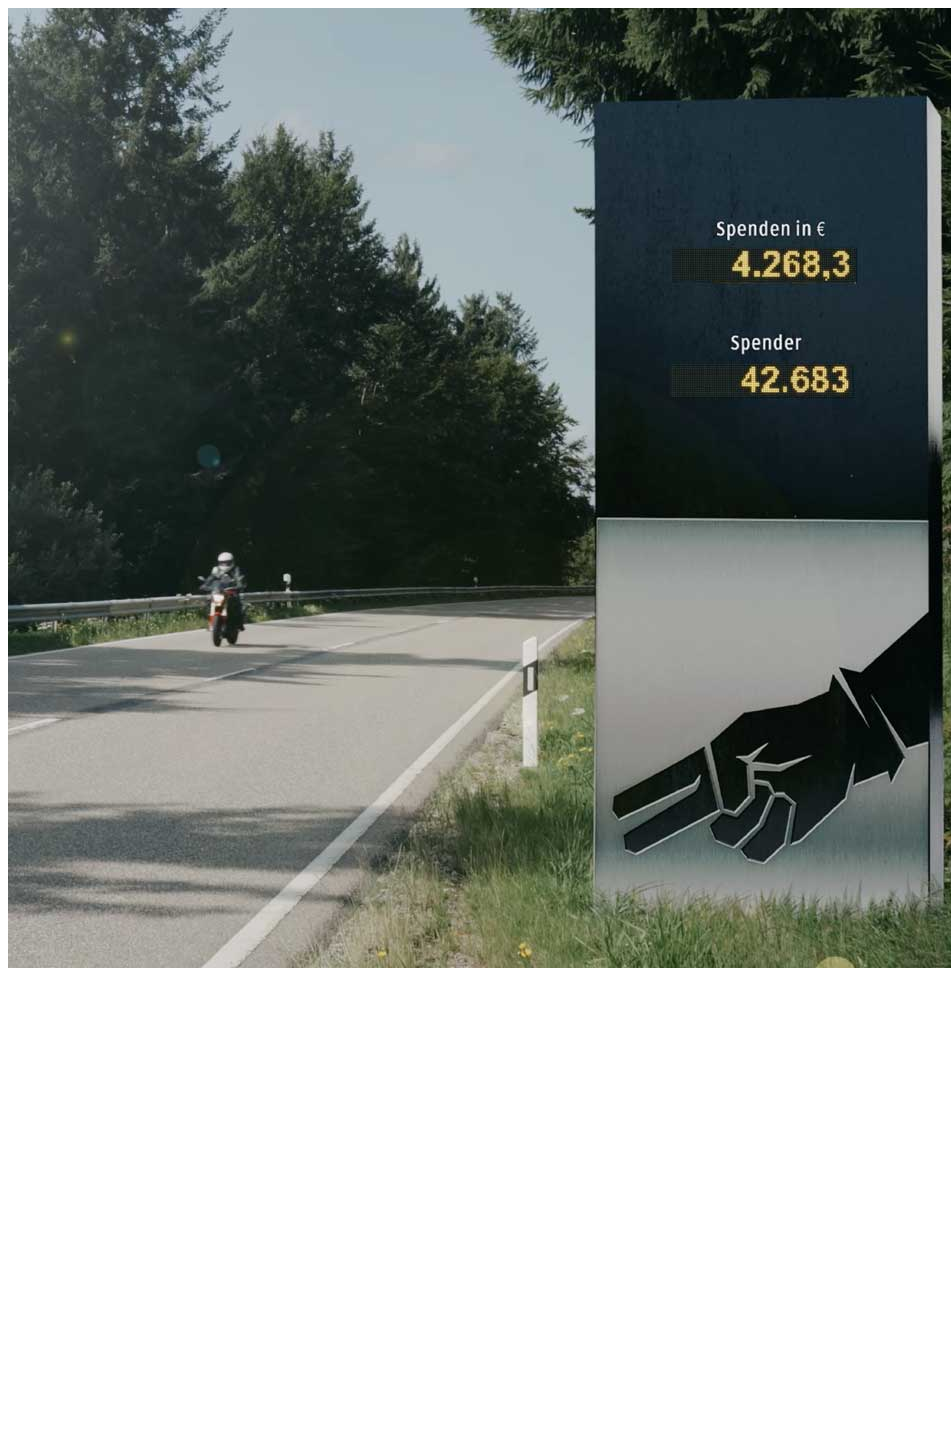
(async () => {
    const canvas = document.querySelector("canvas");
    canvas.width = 951;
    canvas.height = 1440;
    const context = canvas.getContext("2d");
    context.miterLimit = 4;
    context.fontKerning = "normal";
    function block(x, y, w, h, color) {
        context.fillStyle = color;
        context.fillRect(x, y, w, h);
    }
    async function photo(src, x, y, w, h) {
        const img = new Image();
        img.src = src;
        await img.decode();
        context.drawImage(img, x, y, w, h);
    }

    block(0, 0, 951, 1440, "rgb(255, 255, 255)");
    await photo("media/1.png", 8, 8, 943, 960);
})();
